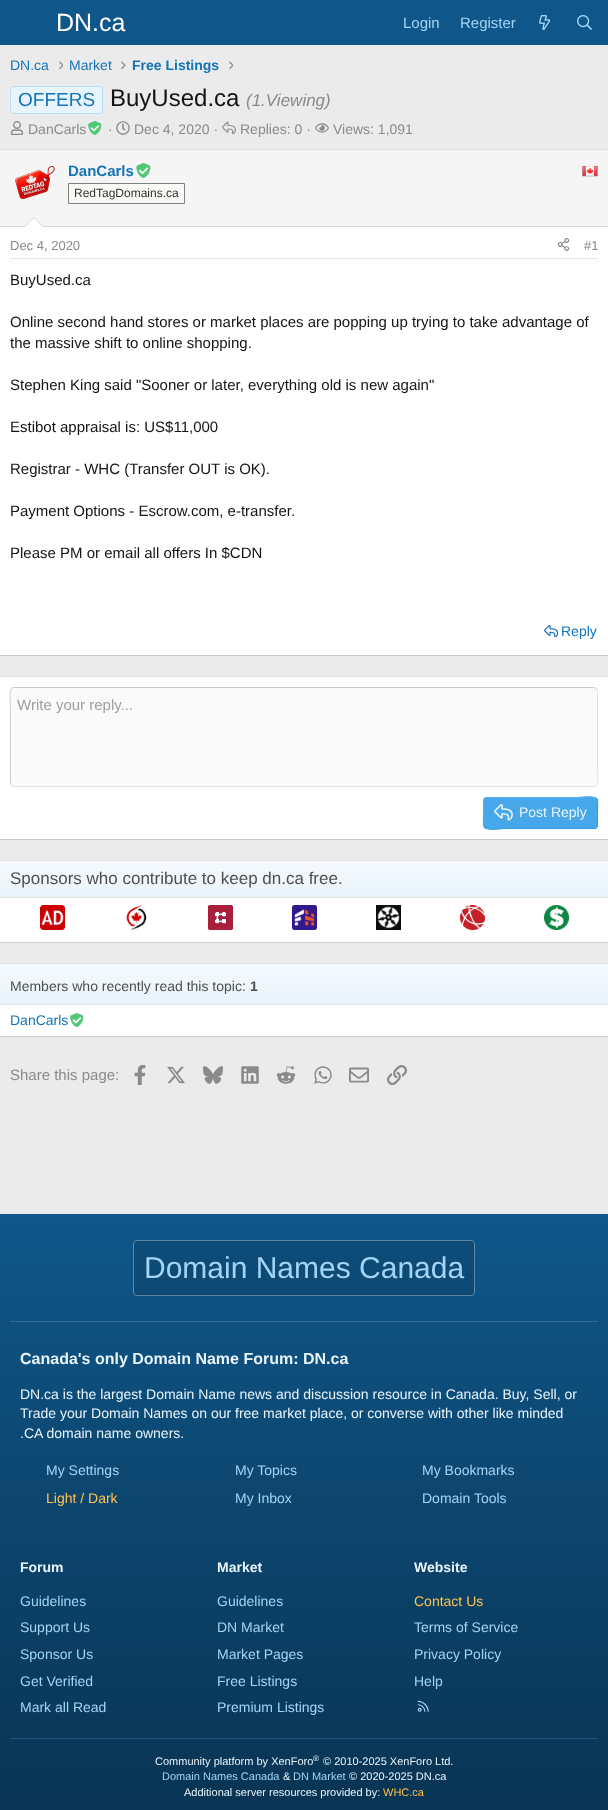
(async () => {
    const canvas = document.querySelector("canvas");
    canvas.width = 608;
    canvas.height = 1810;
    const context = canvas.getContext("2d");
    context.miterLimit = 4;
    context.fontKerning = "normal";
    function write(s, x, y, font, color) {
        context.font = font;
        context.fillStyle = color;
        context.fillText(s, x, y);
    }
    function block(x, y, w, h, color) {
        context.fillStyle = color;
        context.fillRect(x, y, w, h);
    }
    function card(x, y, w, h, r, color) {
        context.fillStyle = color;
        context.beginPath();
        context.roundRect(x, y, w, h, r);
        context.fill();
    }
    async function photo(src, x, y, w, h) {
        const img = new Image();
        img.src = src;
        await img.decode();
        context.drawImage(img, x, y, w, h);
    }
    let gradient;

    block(0, 0, 608, 1810, "rgb(235, 235, 235)");
    block(0, 0, 608, 45, "rgb(15, 87, 138)");
    write("DN.ca", 56, 31, "25px Liberation Sans", "rgb(255, 255, 255)");
    write("Login", 403, 28, "15px Liberation Sans", "rgb(163, 212, 245)");
    write("Register", 460, 28, "15px Liberation Sans", "rgb(163, 212, 245)");
    await photo("media/1.png", 539, 15, 12, 15);
    await photo("media/2.png", 577, 15, 15, 15);
    write("DN.ca", 10, 70, "14px Liberation Sans", "rgb(20, 116, 184)");
    await photo("media/3.png", 59, 61, 4, 9);
    write("Market", 69, 70, "14px Liberation Sans", "rgb(20, 116, 184)");
    await photo("media/4.png", 121, 61, 5, 9);
    write("Free Listings", 132, 70, "bold 14px Liberation Sans", "rgb(20, 116, 184)");
    await photo("media/3.png", 229, 61, 4, 9);
    context.fillStyle = "rgb(232, 244, 252)";
    context.beginPath();
    context.roundRect(10.5, 86.5, 92, 27, 3.5);
    context.fill();
    context.strokeStyle = "rgb(186, 221, 247)";
    context.stroke();
    write("OFFERS", 18, 106, "19px Liberation Sans", "rgb(20, 116, 184)");
    write("BuyUsed.ca", 110, 106, "24px Liberation Sans", "rgb(20, 20, 20)");
    write("(1.Viewing)", 246, 106, "italic 17px Liberation Sans", "rgb(138, 138, 138)");
    await photo("media/5.png", 10, 121, 14, 14);
    write("DanCarls", 28, 134, "14px Liberation Sans", "rgb(138, 138, 138)");
    await photo("media/6.png", 88, 121, 14, 14);
    write("·", 108, 134, "14px Liberation Sans", "rgb(138, 138, 138)");
    await photo("media/7.png", 116, 121, 14, 14);
    write("Dec 4, 2020 ·", 134, 134, "14px Liberation Sans", "rgb(138, 138, 138)");
    await photo("media/8.png", 222, 121, 14, 14);
    write("Replies: 0 ·", 240, 134, "14px Liberation Sans", "rgb(138, 138, 138)");
    await photo("media/9.png", 315, 123, 14, 10);
    write("Views: 1,091", 333, 134, "14px Liberation Sans", "rgb(138, 138, 138)");
    block(0, 227, 608, 428, "rgb(255, 255, 255)");
    block(0, 149, 608, 1, "rgb(224, 224, 224)");
    block(0, 655, 608, 1, "rgb(204, 204, 204)");
    block(0, 150, 608, 76, "rgb(245, 245, 245)");
    block(0, 226, 608, 1, "rgb(214, 214, 214)");
    await photo("media/10.png", 15, 166, 40, 34);
    write("DanCarls", 68, 176, "bold 15px Liberation Sans", "rgb(20, 116, 184)");
    await photo("media/11.png", 136, 163, 15, 15);
    context.fillStyle = "rgb(250, 249, 246)";
    context.beginPath();
    context.rect(68.5, 183.5, 116, 20);
    context.fill();
    context.strokeStyle = "rgb(128, 128, 128)";
    context.stroke();
    write("RedTagDomains.ca", 74, 197, "12px Liberation Sans", "rgb(51, 51, 51)");
    await photo("media/12.png", 582, 166, 16, 11);
    context.fillStyle = "rgb(214, 214, 214)";
    context.beginPath();
    context.moveTo(44, 227);
    context.lineTo(24, 227);
    context.lineTo(34, 217);
    context.closePath();
    context.fill();
    context.fillStyle = "rgb(255, 255, 255)";
    context.beginPath();
    context.moveTo(43, 227);
    context.lineTo(25, 227);
    context.lineTo(34, 218);
    context.closePath();
    context.fill();
    block(10, 258, 588, 1, "rgb(230, 230, 230)");
    write("Dec 4, 2020", 10, 250, "13px Liberation Sans", "rgb(138, 138, 138)");
    await photo("media/13.png", 557, 238, 13, 13);
    write("#1", 584, 250, "13px Liberation Sans", "rgb(138, 138, 138)");
    write("BuyUsed.ca", 10, 285, "15px Liberation Sans", "rgb(20, 20, 20)");
    write("Online second hand stores or market places are popping up trying to take advantage of", 10, 327, "15px Liberation Sans", "rgb(20, 20, 20)");
    write("the massive shift to online shopping.", 10, 348, "15px Liberation Sans", "rgb(20, 20, 20)");
    write("Stephen King said \"Sooner or later, everything old is new again\"", 10, 390, "15px Liberation Sans", "rgb(20, 20, 20)");
    write("Estibot appraisal is: US$11,000", 10, 432, "15px Liberation Sans", "rgb(20, 20, 20)");
    write("Registrar - WHC (Transfer OUT is OK).", 10, 474, "15px Liberation Sans", "rgb(20, 20, 20)");
    write("Payment Options - Escrow.com, e-transfer.", 10, 516, "15px Liberation Sans", "rgb(20, 20, 20)");
    write("Please PM or email all offers In $CDN", 10, 558, "15px Liberation Sans", "rgb(20, 20, 20)");
    await photo("media/14.png", 544, 625, 14, 12);
    write("Reply", 561, 636, "14px Liberation Sans", "rgb(20, 116, 184)");
    block(0, 677, 608, 162, "rgb(255, 255, 255)");
    block(0, 676, 608, 1, "rgb(224, 224, 224)");
    block(0, 839, 608, 1, "rgb(204, 204, 204)");
    card(10, 687, 588, 100, 4, "rgb(250, 250, 250)");
    context.beginPath();
    context.moveTo(596.5, 688.5);
    context.lineTo(597.5, 691);
    context.lineTo(597.5, 767.5);
    context.bezierCurveTo(597.5, 774.5, 600, 786.5, 594, 786.5);
    context.lineTo(14, 786.5);
    context.lineTo(11.5, 785.5);
    context.strokeStyle = "rgb(224, 224, 224)";
    context.stroke();
    context.beginPath();
    context.moveTo(11.5, 785.5);
    context.lineTo(10.5, 783);
    context.lineTo(10.5, 706.5);
    context.bezierCurveTo(10.5, 699.5, 8, 687.5, 14, 687.5);
    context.lineTo(594, 687.5);
    context.lineTo(596.5, 688.5);
    context.strokeStyle = "rgb(204, 204, 204)";
    context.stroke();
    write("Write your reply...", 17, 710, "15px Liberation Sans", "rgb(158, 158, 158)");
    card(483, 797, 115, 32, 4, "rgb(71, 167, 235)");
    context.beginPath();
    context.moveTo(596.5, 798.5);
    context.bezierCurveTo(598.5, 801, 597.5, 810, 597.5, 813);
    context.lineTo(597.5, 821);
    context.bezierCurveTo(597.5, 823.5, 598, 828.5, 594, 828.5);
    context.lineTo(505, 828.5);
    context.bezierCurveTo(498.5, 828.5, 491, 831, 485.5, 828);
    context.lineTo(484.5, 827.5);
    context.strokeStyle = "rgb(48, 156, 232)";
    context.stroke();
    context.beginPath();
    context.moveTo(484.5, 827.5);
    context.bezierCurveTo(482.5, 825, 483.5, 816, 483.5, 813);
    context.lineTo(483.5, 805);
    context.bezierCurveTo(483.5, 802.5, 483, 797.5, 487, 797.5);
    context.lineTo(576, 797.5);
    context.bezierCurveTo(582.5, 797.5, 590, 795, 595.5, 798);
    context.lineTo(596.5, 798.5);
    context.strokeStyle = "rgb(94, 178, 237)";
    context.stroke();
    await photo("media/15.png", 494, 804, 19, 17);
    write("Post Reply", 519, 817, "14px Liberation Sans", "rgb(232, 244, 252)");
    block(0, 898, 608, 44, "rgb(255, 255, 255)");
    block(0, 860, 608, 1, "rgb(224, 224, 224)");
    block(0, 942, 608, 1, "rgb(204, 204, 204)");
    gradient = context.createLinearGradient(304, 897, 304, 861);
    gradient.addColorStop(0, "rgb(232, 244, 252)");
    gradient.addColorStop(1, "rgb(246, 250, 254)");
    context.fillStyle = gradient;
    context.fillRect(0, 861, 608, 36);
    block(0, 897, 608, 1, "rgb(224, 224, 224)");
    write("Sponsors who contribute to keep dn.ca free.", 10, 884, "17px Liberation Sans", "rgb(79, 79, 79)");
    await photo("media/16.png", 40, 905, 25, 25);
    await photo("media/17.png", 126, 905, 21, 25);
    await photo("media/18.png", 208, 905, 25, 25);
    await photo("media/19.png", 292, 905, 25, 25);
    await photo("media/20.png", 376, 905, 25, 25);
    await photo("media/21.png", 460, 905, 25, 25);
    await photo("media/22.png", 544, 905, 25, 25);
    block(0, 1005, 608, 31, "rgb(255, 255, 255)");
    block(0, 963, 608, 1, "rgb(224, 224, 224)");
    block(0, 1036, 608, 1, "rgb(204, 204, 204)");
    gradient = context.createLinearGradient(304, 1004, 304, 964);
    gradient.addColorStop(0, "rgb(232, 244, 252)");
    gradient.addColorStop(1, "rgb(246, 250, 254)");
    context.fillStyle = gradient;
    context.fillRect(0, 964, 608, 40);
    block(0, 1004, 608, 1, "rgb(224, 224, 224)");
    write("Members who recently read this topic:", 10, 991, "14px Liberation Sans", "rgb(79, 79, 79)");
    write("1", 250, 991, "bold 14px Liberation Sans", "rgb(79, 79, 79)");
    write("DanCarls", 10, 1025, "14px Liberation Sans", "rgb(20, 116, 184)");
    await photo("media/23.png", 70, 1013, 14, 14);
    write("Share this page:", 10, 1080, "15px Liberation Sans", "rgb(138, 138, 138)");
    await photo("media/24.png", 134, 1065, 12, 20);
    await photo("media/25.png", 167, 1066, 18, 18);
    await photo("media/26.png", 203, 1066, 20, 18);
    await photo("media/27.png", 241, 1066, 18, 18);
    await photo("media/28.png", 276, 1066, 20, 18);
    await photo("media/29.png", 314, 1066, 18, 18);
    await photo("media/30.png", 349, 1067, 20, 16);
    await photo("media/31.png", 387, 1065, 20, 20);
    gradient = context.createLinearGradient(304, 1810, 304, 1214);
    gradient.addColorStop(0, "rgb(9, 52, 83)");
    gradient.addColorStop(1, "rgb(15, 87, 138)");
    context.fillStyle = gradient;
    context.fillRect(0, 1214, 608, 596);
    block(10, 1738, 588, 1, "rgb(25, 84, 126)");
    block(10, 1321, 588, 1, "rgb(50, 107, 147)");
    card(133, 1240, 342, 56, 4, "rgba(0, 0, 0, 0.1)");
    context.beginPath();
    context.roundRect(133.5, 1240.5, 341, 55, 3.5);
    context.strokeStyle = "rgba(255, 255, 255, 0.33)";
    context.stroke();
    write("Domain Names Canada", 144, 1278, "30px Liberation Sans", "rgb(163, 212, 245)");
    write("Canada's only Domain Name Forum: DN.ca", 20, 1364, "bold 16px Liberation Sans", "rgb(232, 244, 252)");
    write("DN.ca is the largest Domain Name news and discussion resource in Canada. Buy, Sell, or", 20, 1399, "14px Liberation Sans", "rgb(232, 244, 252)");
    write("Trade your Domain Names on our free market place, or converse with other like minded", 20, 1418, "14px Liberation Sans", "rgb(232, 244, 252)");
    write(".CA domain name owners.", 20, 1438, "14px Liberation Sans", "rgb(232, 244, 252)");
    write("My Settings", 46, 1475, "14px Liberation Sans", "rgb(163, 212, 245)");
    write("My Topics", 235, 1475, "14px Liberation Sans", "rgb(163, 212, 245)");
    write("My Bookmarks", 422, 1475, "14px Liberation Sans", "rgb(163, 212, 245)");
    write("Light / Dark", 46, 1503, "14px Liberation Sans", "rgb(255, 193, 77)");
    write("My Inbox", 235, 1503, "14px Liberation Sans", "rgb(163, 212, 245)");
    write("Domain Tools", 422, 1503, "14px Liberation Sans", "rgb(163, 212, 245)");
    write("Forum", 20, 1572, "bold 14px Liberation Sans", "rgb(232, 244, 252)");
    write("Guidelines", 20, 1606, "14px Liberation Sans", "rgb(163, 212, 245)");
    write("Support Us", 20, 1632, "14px Liberation Sans", "rgb(163, 212, 245)");
    write("Sponsor Us", 20, 1659, "14px Liberation Sans", "rgb(163, 212, 245)");
    write("Get Verified", 20, 1686, "14px Liberation Sans", "rgb(163, 212, 245)");
    write("Mark all Read", 20, 1712, "14px Liberation Sans", "rgb(163, 212, 245)");
    write("Market", 217, 1572, "bold 14px Liberation Sans", "rgb(232, 244, 252)");
    write("Guidelines", 217, 1606, "14px Liberation Sans", "rgb(163, 212, 245)");
    write("DN Market", 217, 1632, "14px Liberation Sans", "rgb(163, 212, 245)");
    write("Market Pages", 217, 1659, "14px Liberation Sans", "rgb(163, 212, 245)");
    write("Free Listings", 217, 1686, "14px Liberation Sans", "rgb(163, 212, 245)");
    write("Premium Listings", 217, 1712, "14px Liberation Sans", "rgb(163, 212, 245)");
    write("Website", 414, 1572, "bold 14px Liberation Sans", "rgb(232, 244, 252)");
    write("Contact Us", 414, 1606, "14px Liberation Sans", "rgb(255, 193, 77)");
    write("Terms of Service", 414, 1632, "14px Liberation Sans", "rgb(163, 212, 245)");
    write("Privacy Policy", 414, 1659, "14px Liberation Sans", "rgb(163, 212, 245)");
    write("Help", 414, 1686, "14px Liberation Sans", "rgb(163, 212, 245)");
    await photo("media/32.png", 417, 1700, 12, 12);
    write("Community platform by XenForo", 155, 1765, "11px Liberation Sans", "rgb(232, 244, 252)");
    write("®", 313, 1761, "8px Liberation Sans", "rgb(232, 244, 252)");
    write("© 2010-2025 XenForo Ltd.", 323, 1765, "11px Liberation Sans", "rgb(232, 244, 252)");
    write("Domain Names Canada", 162, 1780, "11px Liberation Sans", "rgb(163, 212, 245)");
    write("&", 283, 1780, "11px Liberation Sans", "rgb(232, 244, 252)");
    write("DN Market", 293, 1780, "11px Liberation Sans", "rgb(163, 212, 245)");
    write("© 2020-2025 DN.ca", 349, 1780, "11px Liberation Sans", "rgb(232, 244, 252)");
    write("Additional server resources provided by:", 184, 1796, "11px Liberation Sans", "rgb(232, 244, 252)");
    write("WHC.ca", 383, 1796, "11px Liberation Sans", "rgb(255, 193, 77)");
})();
